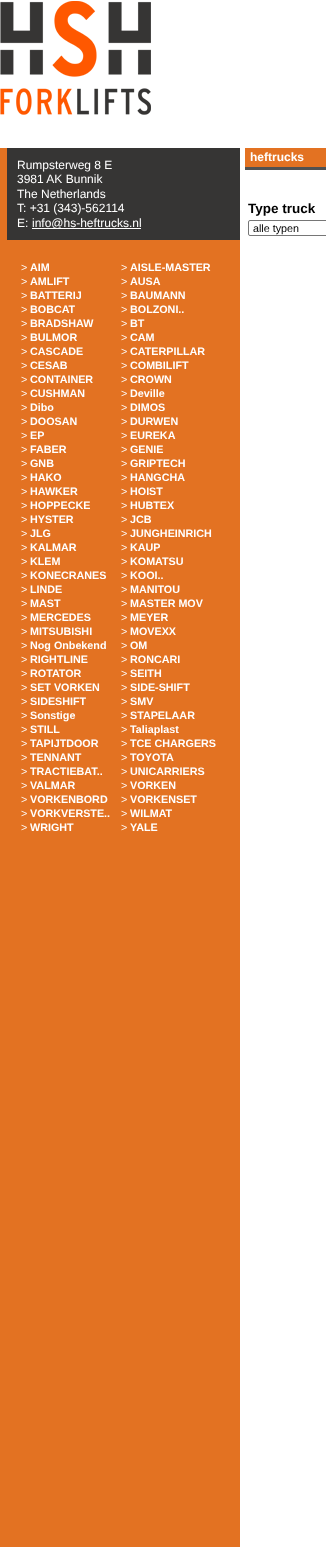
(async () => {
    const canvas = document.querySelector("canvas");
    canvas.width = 326;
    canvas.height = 1547;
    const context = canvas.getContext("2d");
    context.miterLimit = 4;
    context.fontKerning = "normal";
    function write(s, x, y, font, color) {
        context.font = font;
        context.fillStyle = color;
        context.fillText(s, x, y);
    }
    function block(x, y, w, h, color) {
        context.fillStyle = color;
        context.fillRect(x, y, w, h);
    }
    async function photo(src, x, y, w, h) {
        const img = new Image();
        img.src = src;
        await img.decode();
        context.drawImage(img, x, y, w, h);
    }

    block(0, 0, 326, 1547, "rgb(255, 255, 255)");
    await photo("media/1.png", 0, 0, 326, 148);
    await photo("media/2.png", 0, 1, 151, 114);
    block(0, 148, 240, 1399, "rgb(227, 114, 34)");
    block(7, 148, 233, 92, "rgb(54, 53, 52)");
    write("Rumpsterweg 8 E", 17, 169, "12px Liberation Sans", "rgb(255, 255, 255)");
    write("3981 AK Bunnik", 17, 183, "12px Liberation Sans", "rgb(255, 255, 255)");
    write("The Netherlands", 17, 198, "12px Liberation Sans", "rgb(255, 255, 255)");
    write("T: +31 (343)-562114", 17, 212, "12px Liberation Sans", "rgb(255, 255, 255)");
    write("E:", 17, 227, "12px Liberation Sans", "rgb(255, 255, 255)");
    block(32, 228, 109, 1, "rgb(255, 255, 255)");
    write("info@hs-heftrucks.nl", 32, 227, "12px Liberation Sans", "rgb(255, 255, 255)");
    write(">", 21, 271, "10.75px Liberation Sans", "rgb(255, 255, 255)");
    write("AIM", 30, 271, "bold 10.75px Liberation Sans", "rgb(255, 255, 255)");
    write(">", 121, 271, "10.75px Liberation Sans", "rgb(255, 255, 255)");
    write("AISLE-MASTER", 130, 271, "bold 10.75px Liberation Sans", "rgb(255, 255, 255)");
    write(">", 21, 285, "10.75px Liberation Sans", "rgb(255, 255, 255)");
    write("AMLIFT", 30, 285, "bold 10.75px Liberation Sans", "rgb(255, 255, 255)");
    write(">", 121, 285, "10.75px Liberation Sans", "rgb(255, 255, 255)");
    write("AUSA", 130, 285, "bold 10.75px Liberation Sans", "rgb(255, 255, 255)");
    write(">", 21, 299, "10.75px Liberation Sans", "rgb(255, 255, 255)");
    write("BATTERIJ", 30, 299, "bold 10.75px Liberation Sans", "rgb(255, 255, 255)");
    write(">", 121, 299, "10.75px Liberation Sans", "rgb(255, 255, 255)");
    write("BAUMANN", 130, 299, "bold 10.75px Liberation Sans", "rgb(255, 255, 255)");
    write(">", 21, 313, "10.75px Liberation Sans", "rgb(255, 255, 255)");
    write("BOBCAT", 30, 313, "bold 10.75px Liberation Sans", "rgb(255, 255, 255)");
    write(">", 121, 313, "10.75px Liberation Sans", "rgb(255, 255, 255)");
    write("BOLZONI..", 130, 313, "bold 10.75px Liberation Sans", "rgb(255, 255, 255)");
    write(">", 21, 327, "10.75px Liberation Sans", "rgb(255, 255, 255)");
    write("BRADSHAW", 30, 327, "bold 10.75px Liberation Sans", "rgb(255, 255, 255)");
    write(">", 121, 327, "10.75px Liberation Sans", "rgb(255, 255, 255)");
    write("BT", 130, 327, "bold 10.75px Liberation Sans", "rgb(255, 255, 255)");
    write(">", 21, 341, "10.75px Liberation Sans", "rgb(255, 255, 255)");
    write("BULMOR", 30, 341, "bold 10.75px Liberation Sans", "rgb(255, 255, 255)");
    write(">", 121, 341, "10.75px Liberation Sans", "rgb(255, 255, 255)");
    write("CAM", 130, 341, "bold 10.75px Liberation Sans", "rgb(255, 255, 255)");
    write(">", 21, 355, "10.75px Liberation Sans", "rgb(255, 255, 255)");
    write("CASCADE", 30, 355, "bold 10.75px Liberation Sans", "rgb(255, 255, 255)");
    write(">", 121, 355, "10.75px Liberation Sans", "rgb(255, 255, 255)");
    write("CATERPILLAR", 130, 355, "bold 10.75px Liberation Sans", "rgb(255, 255, 255)");
    write(">", 21, 369, "10.75px Liberation Sans", "rgb(255, 255, 255)");
    write("CESAB", 30, 369, "bold 10.75px Liberation Sans", "rgb(255, 255, 255)");
    write(">", 121, 369, "10.75px Liberation Sans", "rgb(255, 255, 255)");
    write("COMBILIFT", 130, 369, "bold 10.75px Liberation Sans", "rgb(255, 255, 255)");
    write(">", 21, 383, "10.75px Liberation Sans", "rgb(255, 255, 255)");
    write("CONTAINER", 30, 383, "bold 10.75px Liberation Sans", "rgb(255, 255, 255)");
    write(">", 121, 383, "10.75px Liberation Sans", "rgb(255, 255, 255)");
    write("CROWN", 130, 383, "bold 10.75px Liberation Sans", "rgb(255, 255, 255)");
    write(">", 21, 397, "10.75px Liberation Sans", "rgb(255, 255, 255)");
    write("CUSHMAN", 30, 397, "bold 10.75px Liberation Sans", "rgb(255, 255, 255)");
    write(">", 121, 397, "10.75px Liberation Sans", "rgb(255, 255, 255)");
    write("Deville", 130, 397, "bold 10.75px Liberation Sans", "rgb(255, 255, 255)");
    write(">", 21, 411, "10.75px Liberation Sans", "rgb(255, 255, 255)");
    write("Dibo", 30, 411, "bold 10.75px Liberation Sans", "rgb(255, 255, 255)");
    write(">", 121, 411, "10.75px Liberation Sans", "rgb(255, 255, 255)");
    write("DIMOS", 130, 411, "bold 10.75px Liberation Sans", "rgb(255, 255, 255)");
    write(">", 21, 425, "10.75px Liberation Sans", "rgb(255, 255, 255)");
    write("DOOSAN", 30, 425, "bold 10.75px Liberation Sans", "rgb(255, 255, 255)");
    write(">", 121, 425, "10.75px Liberation Sans", "rgb(255, 255, 255)");
    write("DURWEN", 130, 425, "bold 10.75px Liberation Sans", "rgb(255, 255, 255)");
    write(">", 21, 439, "10.75px Liberation Sans", "rgb(255, 255, 255)");
    write("EP", 30, 439, "bold 10.75px Liberation Sans", "rgb(255, 255, 255)");
    write(">", 121, 439, "10.75px Liberation Sans", "rgb(255, 255, 255)");
    write("EUREKA", 130, 439, "bold 10.75px Liberation Sans", "rgb(255, 255, 255)");
    write(">", 21, 453, "10.75px Liberation Sans", "rgb(255, 255, 255)");
    write("FABER", 30, 453, "bold 10.75px Liberation Sans", "rgb(255, 255, 255)");
    write(">", 121, 453, "10.75px Liberation Sans", "rgb(255, 255, 255)");
    write("GENIE", 130, 453, "bold 10.75px Liberation Sans", "rgb(255, 255, 255)");
    write(">", 21, 467, "10.75px Liberation Sans", "rgb(255, 255, 255)");
    write("GNB", 30, 467, "bold 10.75px Liberation Sans", "rgb(255, 255, 255)");
    write(">", 121, 467, "10.75px Liberation Sans", "rgb(255, 255, 255)");
    write("GRIPTECH", 130, 467, "bold 10.75px Liberation Sans", "rgb(255, 255, 255)");
    write(">", 21, 481, "10.75px Liberation Sans", "rgb(255, 255, 255)");
    write("HAKO", 30, 481, "bold 10.75px Liberation Sans", "rgb(255, 255, 255)");
    write(">", 121, 481, "10.75px Liberation Sans", "rgb(255, 255, 255)");
    write("HANGCHA", 130, 481, "bold 10.75px Liberation Sans", "rgb(255, 255, 255)");
    write(">", 21, 495, "10.75px Liberation Sans", "rgb(255, 255, 255)");
    write("HAWKER", 30, 495, "bold 10.75px Liberation Sans", "rgb(255, 255, 255)");
    write(">", 121, 495, "10.75px Liberation Sans", "rgb(255, 255, 255)");
    write("HOIST", 130, 495, "bold 10.75px Liberation Sans", "rgb(255, 255, 255)");
    write(">", 21, 509, "10.75px Liberation Sans", "rgb(255, 255, 255)");
    write("HOPPECKE", 30, 509, "bold 10.75px Liberation Sans", "rgb(255, 255, 255)");
    write(">", 121, 509, "10.75px Liberation Sans", "rgb(255, 255, 255)");
    write("HUBTEX", 130, 509, "bold 10.75px Liberation Sans", "rgb(255, 255, 255)");
    write(">", 21, 523, "10.75px Liberation Sans", "rgb(255, 255, 255)");
    write("HYSTER", 30, 523, "bold 10.75px Liberation Sans", "rgb(255, 255, 255)");
    write(">", 121, 523, "10.75px Liberation Sans", "rgb(255, 255, 255)");
    write("JCB", 130, 523, "bold 10.75px Liberation Sans", "rgb(255, 255, 255)");
    write(">", 21, 537, "10.75px Liberation Sans", "rgb(255, 255, 255)");
    write("JLG", 30, 537, "bold 10.75px Liberation Sans", "rgb(255, 255, 255)");
    write(">", 121, 537, "10.75px Liberation Sans", "rgb(255, 255, 255)");
    write("JUNGHEINRICH", 130, 537, "bold 10.75px Liberation Sans", "rgb(255, 255, 255)");
    write(">", 21, 551, "10.75px Liberation Sans", "rgb(255, 255, 255)");
    write("KALMAR", 30, 551, "bold 10.75px Liberation Sans", "rgb(255, 255, 255)");
    write(">", 121, 551, "10.75px Liberation Sans", "rgb(255, 255, 255)");
    write("KAUP", 130, 551, "bold 10.75px Liberation Sans", "rgb(255, 255, 255)");
    write(">", 21, 565, "10.75px Liberation Sans", "rgb(255, 255, 255)");
    write("KLEM", 30, 565, "bold 10.75px Liberation Sans", "rgb(255, 255, 255)");
    write(">", 121, 565, "10.75px Liberation Sans", "rgb(255, 255, 255)");
    write("KOMATSU", 130, 565, "bold 10.75px Liberation Sans", "rgb(255, 255, 255)");
    write(">", 21, 579, "10.75px Liberation Sans", "rgb(255, 255, 255)");
    write("KONECRANES", 30, 579, "bold 10.75px Liberation Sans", "rgb(255, 255, 255)");
    write(">", 121, 579, "10.75px Liberation Sans", "rgb(255, 255, 255)");
    write("KOOI..", 130, 579, "bold 10.75px Liberation Sans", "rgb(255, 255, 255)");
    write(">", 21, 593, "10.75px Liberation Sans", "rgb(255, 255, 255)");
    write("LINDE", 30, 593, "bold 10.75px Liberation Sans", "rgb(255, 255, 255)");
    write(">", 121, 593, "10.75px Liberation Sans", "rgb(255, 255, 255)");
    write("MANITOU", 130, 593, "bold 10.75px Liberation Sans", "rgb(255, 255, 255)");
    write(">", 21, 607, "10.75px Liberation Sans", "rgb(255, 255, 255)");
    write("MAST", 30, 607, "bold 10.75px Liberation Sans", "rgb(255, 255, 255)");
    write(">", 121, 607, "10.75px Liberation Sans", "rgb(255, 255, 255)");
    write("MASTER MOV", 130, 607, "bold 10.75px Liberation Sans", "rgb(255, 255, 255)");
    write(">", 21, 621, "10.75px Liberation Sans", "rgb(255, 255, 255)");
    write("MERCEDES", 30, 621, "bold 10.75px Liberation Sans", "rgb(255, 255, 255)");
    write(">", 121, 621, "10.75px Liberation Sans", "rgb(255, 255, 255)");
    write("MEYER", 130, 621, "bold 10.75px Liberation Sans", "rgb(255, 255, 255)");
    write(">", 21, 635, "10.75px Liberation Sans", "rgb(255, 255, 255)");
    write("MITSUBISHI", 30, 635, "bold 10.75px Liberation Sans", "rgb(255, 255, 255)");
    write(">", 121, 635, "10.75px Liberation Sans", "rgb(255, 255, 255)");
    write("MOVEXX", 130, 635, "bold 10.75px Liberation Sans", "rgb(255, 255, 255)");
    write(">", 21, 649, "10.75px Liberation Sans", "rgb(255, 255, 255)");
    write("Nog Onbekend", 30, 649, "bold 10.75px Liberation Sans", "rgb(255, 255, 255)");
    write(">", 121, 649, "10.75px Liberation Sans", "rgb(255, 255, 255)");
    write("OM", 130, 649, "bold 10.75px Liberation Sans", "rgb(255, 255, 255)");
    write(">", 21, 663, "10.75px Liberation Sans", "rgb(255, 255, 255)");
    write("RIGHTLINE", 30, 663, "bold 10.75px Liberation Sans", "rgb(255, 255, 255)");
    write(">", 121, 663, "10.75px Liberation Sans", "rgb(255, 255, 255)");
    write("RONCARI", 130, 663, "bold 10.75px Liberation Sans", "rgb(255, 255, 255)");
    write(">", 21, 677, "10.75px Liberation Sans", "rgb(255, 255, 255)");
    write("ROTATOR", 30, 677, "bold 10.75px Liberation Sans", "rgb(255, 255, 255)");
    write(">", 121, 677, "10.75px Liberation Sans", "rgb(255, 255, 255)");
    write("SEITH", 130, 677, "bold 10.75px Liberation Sans", "rgb(255, 255, 255)");
    write(">", 21, 691, "10.75px Liberation Sans", "rgb(255, 255, 255)");
    write("SET VORKEN", 30, 691, "bold 10.75px Liberation Sans", "rgb(255, 255, 255)");
    write(">", 121, 691, "10.75px Liberation Sans", "rgb(255, 255, 255)");
    write("SIDE-SHIFT", 130, 691, "bold 10.75px Liberation Sans", "rgb(255, 255, 255)");
    write(">", 21, 705, "10.75px Liberation Sans", "rgb(255, 255, 255)");
    write("SIDESHIFT", 30, 705, "bold 10.75px Liberation Sans", "rgb(255, 255, 255)");
    write(">", 121, 705, "10.75px Liberation Sans", "rgb(255, 255, 255)");
    write("SMV", 130, 705, "bold 10.75px Liberation Sans", "rgb(255, 255, 255)");
    write(">", 21, 719, "10.75px Liberation Sans", "rgb(255, 255, 255)");
    write("Sonstige", 30, 719, "bold 10.75px Liberation Sans", "rgb(255, 255, 255)");
    write(">", 121, 719, "10.75px Liberation Sans", "rgb(255, 255, 255)");
    write("STAPELAAR", 130, 719, "bold 10.75px Liberation Sans", "rgb(255, 255, 255)");
    write(">", 21, 733, "10.75px Liberation Sans", "rgb(255, 255, 255)");
    write("STILL", 30, 733, "bold 10.75px Liberation Sans", "rgb(255, 255, 255)");
    write(">", 121, 733, "10.75px Liberation Sans", "rgb(255, 255, 255)");
    write("Taliaplast", 130, 733, "bold 10.75px Liberation Sans", "rgb(255, 255, 255)");
    write(">", 21, 747, "10.75px Liberation Sans", "rgb(255, 255, 255)");
    write("TAPIJTDOOR", 30, 747, "bold 10.75px Liberation Sans", "rgb(255, 255, 255)");
    write(">", 121, 747, "10.75px Liberation Sans", "rgb(255, 255, 255)");
    write("TCE CHARGERS", 130, 747, "bold 10.75px Liberation Sans", "rgb(255, 255, 255)");
    write(">", 21, 761, "10.75px Liberation Sans", "rgb(255, 255, 255)");
    write("TENNANT", 30, 761, "bold 10.75px Liberation Sans", "rgb(255, 255, 255)");
    write(">", 121, 761, "10.75px Liberation Sans", "rgb(255, 255, 255)");
    write("TOYOTA", 130, 761, "bold 10.75px Liberation Sans", "rgb(255, 255, 255)");
    write(">", 21, 775, "10.75px Liberation Sans", "rgb(255, 255, 255)");
    write("TRACTIEBAT..", 30, 775, "bold 10.75px Liberation Sans", "rgb(255, 255, 255)");
    write(">", 121, 775, "10.75px Liberation Sans", "rgb(255, 255, 255)");
    write("UNICARRIERS", 130, 775, "bold 10.75px Liberation Sans", "rgb(255, 255, 255)");
    write(">", 21, 789, "10.75px Liberation Sans", "rgb(255, 255, 255)");
    write("VALMAR", 30, 789, "bold 10.75px Liberation Sans", "rgb(255, 255, 255)");
    write(">", 121, 789, "10.75px Liberation Sans", "rgb(255, 255, 255)");
    write("VORKEN", 130, 789, "bold 10.75px Liberation Sans", "rgb(255, 255, 255)");
    write(">", 21, 803, "10.75px Liberation Sans", "rgb(255, 255, 255)");
    write("VORKENBORD", 30, 803, "bold 10.75px Liberation Sans", "rgb(255, 255, 255)");
    write(">", 121, 803, "10.75px Liberation Sans", "rgb(255, 255, 255)");
    write("VORKENSET", 130, 803, "bold 10.75px Liberation Sans", "rgb(255, 255, 255)");
    write(">", 21, 817, "10.75px Liberation Sans", "rgb(255, 255, 255)");
    write("VORKVERSTE..", 30, 817, "bold 10.75px Liberation Sans", "rgb(255, 255, 255)");
    write(">", 121, 817, "10.75px Liberation Sans", "rgb(255, 255, 255)");
    write("WILMAT", 130, 817, "bold 10.75px Liberation Sans", "rgb(255, 255, 255)");
    write(">", 21, 831, "10.75px Liberation Sans", "rgb(255, 255, 255)");
    write("WRIGHT", 30, 831, "bold 10.75px Liberation Sans", "rgb(255, 255, 255)");
    write(">", 121, 831, "10.75px Liberation Sans", "rgb(255, 255, 255)");
    write("YALE", 130, 831, "bold 10.75px Liberation Sans", "rgb(255, 255, 255)");
    block(245, 167, 81, 3, "rgb(81, 81, 81)");
    block(245, 148, 81, 19, "rgb(227, 114, 34)");
    write("heftrucks", 250, 161, "bold 12px Liberation Sans", "rgb(255, 255, 255)");
    write("Type truck", 248, 213, "bold 13.5px Liberation Sans", "rgb(0, 0, 0)");
    context.beginPath();
    context.roundRect(248.5, 220.5, 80, 15, 1.5);
    context.strokeStyle = "rgb(118, 118, 118)";
    context.stroke();
    write("alle typen", 253, 232, "10.75px Liberation Sans", "rgb(0, 0, 0)");
})();
